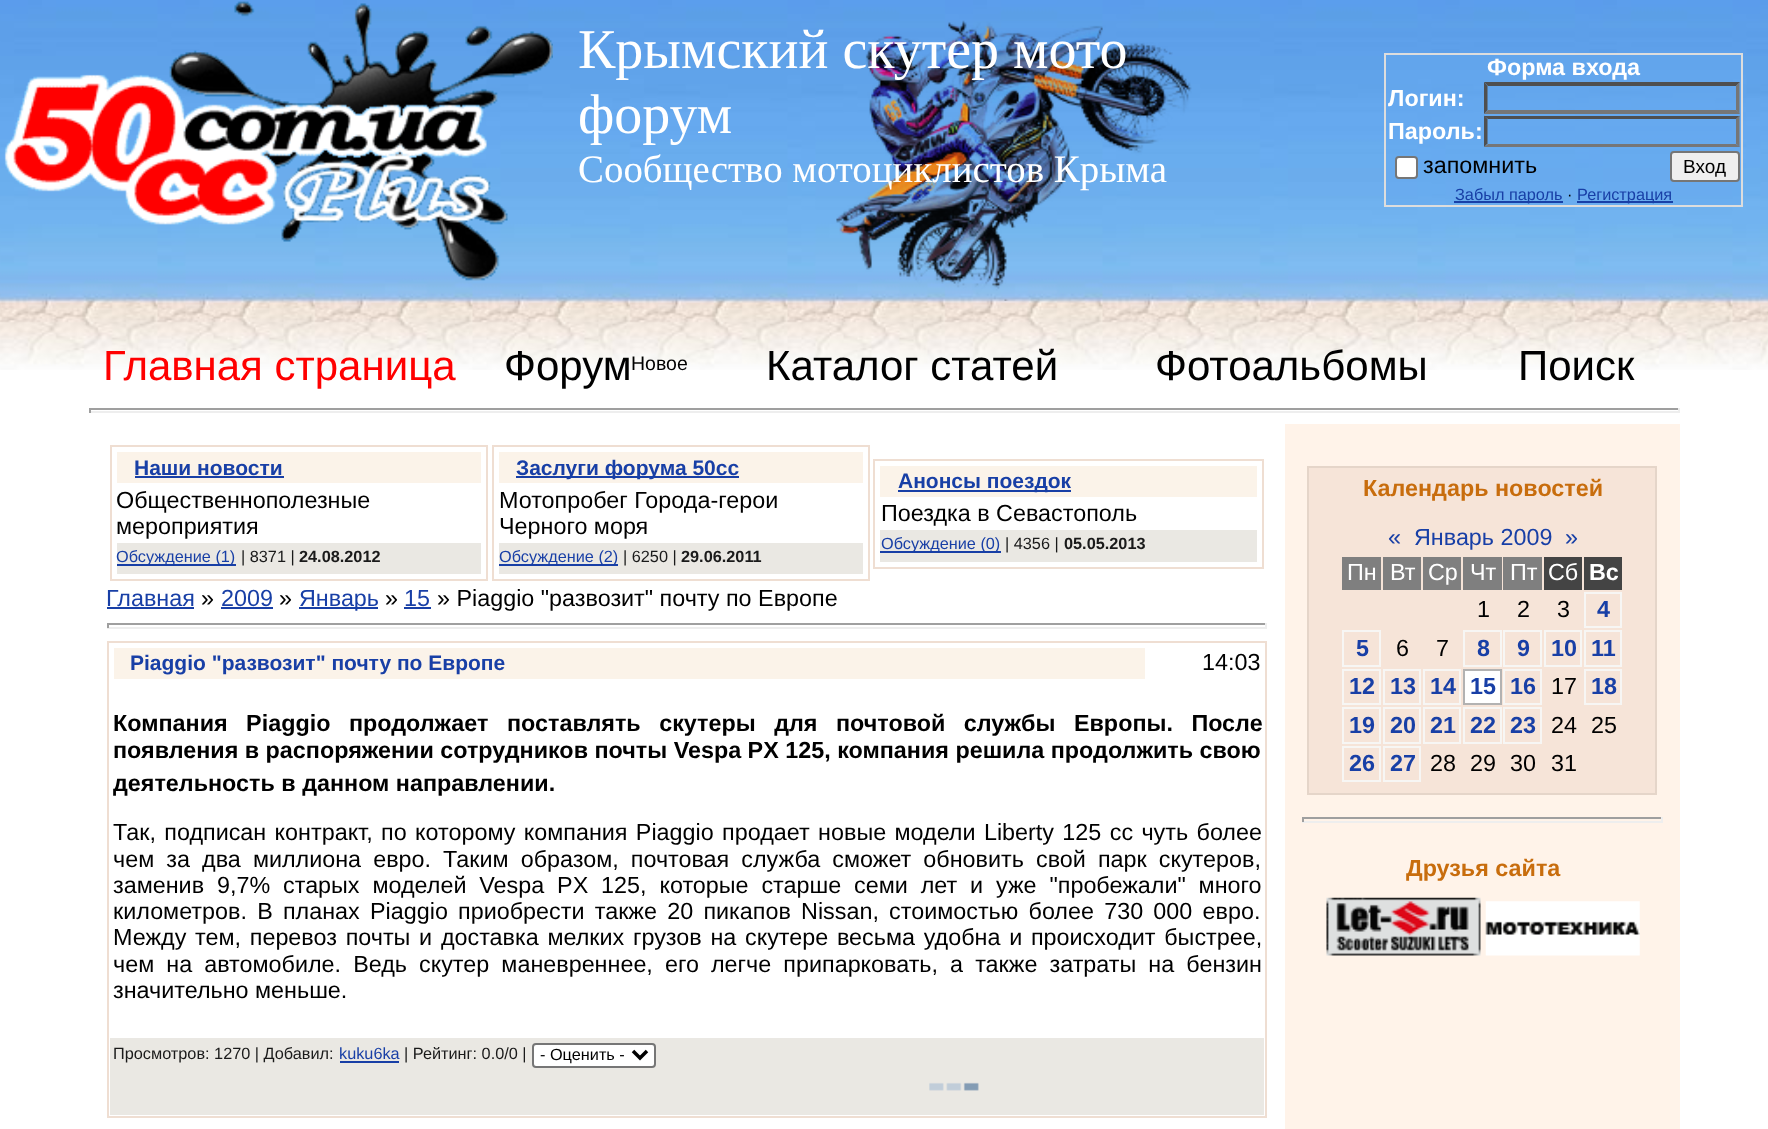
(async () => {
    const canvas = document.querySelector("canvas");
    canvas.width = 1768;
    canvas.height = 1129;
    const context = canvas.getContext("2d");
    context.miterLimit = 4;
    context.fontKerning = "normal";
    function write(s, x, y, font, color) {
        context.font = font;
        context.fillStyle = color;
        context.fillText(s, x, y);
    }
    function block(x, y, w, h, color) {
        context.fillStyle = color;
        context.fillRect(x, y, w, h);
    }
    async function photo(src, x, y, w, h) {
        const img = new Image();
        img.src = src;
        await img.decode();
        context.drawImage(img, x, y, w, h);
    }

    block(0, 0, 1768, 1129, "rgb(255, 255, 255)");
    await photo("media/1.png", 0, 0, 1768, 370);
    await photo("media/2.png", 4, 1, 549, 280);
    await photo("media/3.png", 836, 20, 356, 281);
    write("Крымский скутер мото", 578, 68, "56px Liberation Serif", "rgb(255, 255, 255)");
    write("форум", 578, 133, "56px Liberation Serif", "rgb(255, 255, 255)");
    write("Сообщество мотоциклистов Крыма", 578, 182, "38.9px Liberation Serif", "rgb(255, 255, 255)");
    context.fillStyle = "rgba(102, 169, 240, 0.52)";
    context.beginPath();
    context.rect(1385, 54, 357, 152);
    context.fill();
    context.strokeStyle = "rgb(221, 221, 221)";
    context.lineWidth = 2;
    context.stroke();
    write("Форма входа", 1487, 75, "bold 23.35px Liberation Sans", "rgb(255, 255, 255)");
    write("Логин:", 1388, 106, "bold 23.35px Liberation Sans", "rgb(255, 255, 255)");
    context.fillStyle = "rgb(79, 79, 79)";
    context.beginPath();
    context.moveTo(1484, 82);
    context.lineTo(1740, 82);
    context.lineTo(1736, 86);
    context.lineTo(1488, 86);
    context.closePath();
    context.fill();
    context.fillStyle = "rgb(118, 118, 118)";
    context.beginPath();
    context.moveTo(1739.5, 82);
    context.lineTo(1739.5, 114);
    context.lineTo(1736, 110);
    context.lineTo(1736, 86);
    context.closePath();
    context.fill();
    context.beginPath();
    context.moveTo(1740, 114);
    context.lineTo(1484, 114);
    context.lineTo(1488, 110);
    context.lineTo(1736, 110);
    context.closePath();
    context.fill();
    context.fillStyle = "rgb(79, 79, 79)";
    context.beginPath();
    context.moveTo(1484, 114);
    context.lineTo(1484, 82);
    context.lineTo(1487.5, 86);
    context.lineTo(1487.5, 110);
    context.closePath();
    context.fill();
    write("Пароль:", 1388, 139, "bold 23.35px Liberation Sans", "rgb(255, 255, 255)");
    context.fillStyle = "rgb(79, 79, 79)";
    context.beginPath();
    context.moveTo(1484, 116);
    context.lineTo(1740, 116);
    context.lineTo(1736, 119);
    context.lineTo(1488, 119);
    context.closePath();
    context.fill();
    context.fillStyle = "rgb(118, 118, 118)";
    context.beginPath();
    context.moveTo(1739.5, 115.5);
    context.lineTo(1739.5, 147);
    context.lineTo(1736, 143.5);
    context.lineTo(1736, 119);
    context.closePath();
    context.fill();
    context.beginPath();
    context.moveTo(1740, 147);
    context.lineTo(1484, 147);
    context.lineTo(1488, 144);
    context.lineTo(1736, 144);
    context.closePath();
    context.fill();
    context.fillStyle = "rgb(79, 79, 79)";
    context.beginPath();
    context.moveTo(1484, 147);
    context.lineTo(1484, 115.5);
    context.lineTo(1487.5, 119);
    context.lineTo(1487.5, 143.5);
    context.closePath();
    context.fill();
    context.fillStyle = "rgb(255, 255, 255)";
    context.beginPath();
    context.roundRect(1396, 157, 21, 21, 3);
    context.fill();
    context.strokeStyle = "rgb(118, 118, 118)";
    context.stroke();
    write("запомнить", 1423, 173, "23.35px Liberation Sans", "rgb(0, 0, 0)");
    context.fillStyle = "rgb(239, 239, 239)";
    context.beginPath();
    context.roundRect(1671, 152, 68, 29, 3);
    context.fill();
    context.stroke();
    write("Вход", 1683, 173, "19px Liberation Sans", "rgb(0, 0, 0)");
    block(1454, 201, 109, 2, "rgb(24, 63, 166)");
    write("Забыл пароль", 1455, 200, "16.3px Liberation Sans", "rgb(24, 63, 166)");
    write("·", 1567, 200, "16.3px Liberation Sans", "rgb(0, 0, 0)");
    block(1577, 201, 96, 2, "rgb(24, 63, 166)");
    write("Регистрация", 1577, 200, "16.3px Liberation Sans", "rgb(24, 63, 166)");
    write("Главная страница", 103, 380, "42px Liberation Sans", "rgb(255, 0, 0)");
    write("Форум", 504, 380, "42px Liberation Sans", "rgb(0, 0, 0)");
    write("Новое", 631, 370, "19.5px Liberation Sans", "rgb(0, 0, 0)");
    write("Каталог статей", 766, 380, "42px Liberation Sans", "rgb(0, 0, 0)");
    write("Фотоальбомы", 1155, 380, "42px Liberation Sans", "rgb(0, 0, 0)");
    write("Поиск", 1518, 380, "42px Liberation Sans", "rgb(0, 0, 0)");
    block(89, 408, 1591, 2, "rgb(159, 159, 159)");
    block(1678, 408, 2, 5, "rgb(238, 238, 238)");
    block(89, 411, 1591, 2, "rgb(238, 238, 238)");
    block(89, 408, 2, 5, "rgb(159, 159, 159)");
    context.strokeStyle = "rgb(239, 222, 210)";
    context.strokeRect(111, 446, 376, 134);
    block(117, 452, 364, 31, "rgb(251, 243, 233)");
    write("Наши новости", 134, 475, "bold 21px Liberation Sans", "rgb(24, 63, 166)");
    block(135, 476, 149, 2, "rgb(24, 63, 166)");
    write("Общественнополезные", 116, 508, "23.35px Liberation Sans", "rgb(0, 0, 0)");
    write("мероприятия", 116, 534, "23.35px Liberation Sans", "rgb(0, 0, 0)");
    block(117, 543, 364, 31, "rgb(234, 232, 227)");
    block(117, 564, 119, 2, "rgb(24, 63, 166)");
    write("Обсуждение (1)", 116, 562, "16.3px Liberation Sans", "rgb(24, 63, 166)");
    write("| 8371 |", 241, 562, "16.3px Liberation Sans", "rgb(26, 26, 26)");
    write("24.08.2012", 299, 562, "bold 16.3px Liberation Sans", "rgb(26, 26, 26)");
    context.strokeRect(493, 446, 376, 134);
    block(499, 452, 364, 31, "rgb(251, 243, 233)");
    block(516, 476, 223, 2, "rgb(24, 63, 166)");
    write("Заслуги форума 50cc", 516, 475, "bold 21px Liberation Sans", "rgb(24, 63, 166)");
    write("Мотопробег Города-герои", 499, 508, "23.35px Liberation Sans", "rgb(0, 0, 0)");
    write("Черного моря", 499, 534, "23.35px Liberation Sans", "rgb(0, 0, 0)");
    block(499, 543, 364, 31, "rgb(234, 232, 227)");
    block(499, 564, 119, 2, "rgb(24, 63, 166)");
    write("Обсуждение (2)", 499, 562, "16.3px Liberation Sans", "rgb(24, 63, 166)");
    write("| 6250 |", 623, 562, "16.3px Liberation Sans", "rgb(26, 26, 26)");
    write("29.06.2011", 681, 562, "bold 16.3px Liberation Sans", "rgb(26, 26, 26)");
    context.strokeRect(874, 460, 389, 108);
    block(880, 466, 377, 31, "rgb(251, 243, 233)");
    block(898, 490, 173, 2, "rgb(24, 63, 166)");
    write("Анонсы поездок", 898, 488, "bold 21px Liberation Sans", "rgb(24, 63, 166)");
    write("Поездка в Севастополь", 881, 521, "23.35px Liberation Sans", "rgb(0, 0, 0)");
    block(880, 530, 377, 32, "rgb(234, 232, 227)");
    block(880, 551, 121, 2, "rgb(24, 63, 166)");
    write("Обсуждение (0)", 881, 549, "16.3px Liberation Sans", "rgb(24, 63, 166)");
    write("| 4356 |", 1005, 549, "16.3px Liberation Sans", "rgb(26, 26, 26)");
    write("05.05.2013", 1064, 549, "bold 16.3px Liberation Sans", "rgb(26, 26, 26)");
    write("Главная", 106, 606, "23.35px Liberation Sans", "rgb(24, 63, 166)");
    block(107, 607, 87, 2, "rgb(24, 63, 166)");
    write("»", 201, 606, "23.35px Liberation Sans", "rgb(0, 0, 0)");
    write("2009", 221, 606, "23.35px Liberation Sans", "rgb(24, 63, 166)");
    block(221, 607, 52, 2, "rgb(24, 63, 166)");
    write("»", 279, 606, "23.35px Liberation Sans", "rgb(0, 0, 0)");
    block(299, 607, 79, 2, "rgb(24, 63, 166)");
    write("Январь", 299, 606, "23.35px Liberation Sans", "rgb(24, 63, 166)");
    write("»", 385, 606, "23.35px Liberation Sans", "rgb(0, 0, 0)");
    write("15", 404, 606, "23.35px Liberation Sans", "rgb(24, 63, 166)");
    block(404, 607, 27, 2, "rgb(24, 63, 166)");
    write("» Piaggio \"развозит\" почту по Европе", 437, 606, "23.35px Liberation Sans", "rgb(0, 0, 0)");
    block(107, 623, 1160, 2, "rgb(159, 159, 159)");
    block(1265, 623, 2, 5, "rgb(238, 238, 238)");
    block(107, 627, 1160, 2, "rgb(238, 238, 238)");
    block(107, 623, 2, 5, "rgb(159, 159, 159)");
    context.strokeRect(108, 642, 1158, 475);
    block(114, 648, 1031, 31, "rgb(251, 243, 233)");
    write("Piaggio \"развозит\" почту по Европе", 130, 670, "bold 21px Liberation Sans", "rgb(24, 63, 166)");
    write("14:03", 1202, 670, "23.35px Liberation Sans", "rgb(0, 0, 0)");
    context.wordSpacing = "12px";
    write("Компания Piaggio продолжает поставлять скутеры для почтовой службы Европы. После", 113, 731, "bold 23.35px Liberation Sans", "rgb(0, 0, 0)");
    context.wordSpacing = "0px";
    write("появления в распоряжении сотрудников почты Vespa PX 125, компания решила продолжить свою", 113, 758, "bold 23.35px Liberation Sans", "rgb(0, 0, 0)");
    write("деятельность в данном направлении.", 113, 791, "bold 23.35px Liberation Sans", "rgb(0, 0, 0)");
    context.wordSpacing = "1.9px";
    write("Так, подписан контракт, по которому компания Piaggio продает новые модели Liberty 125 сс чуть более", 113, 840, "23.35px Liberation Sans", "rgb(0, 0, 0)");
    context.wordSpacing = "5.6px";
    write("чем за два миллиона евро. Таким образом, почтовая служба сможет обновить свой парк скутеров,", 113, 867, "23.35px Liberation Sans", "rgb(0, 0, 0)");
    context.wordSpacing = "6.4px";
    write("заменив 9,7% старых моделей Vespa PX 125, которые старше семи лет и уже \"пробежали\" много", 113, 893, "23.35px Liberation Sans", "rgb(0, 0, 0)");
    context.wordSpacing = "3.75px";
    write("километров. В планах Piaggio приобрести также 20 пикапов Nissan, стоимостью более 730 000 евро.", 113, 919, "23.35px Liberation Sans", "rgb(0, 0, 0)");
    context.wordSpacing = "2.25px";
    write("Между тем, перевоз почты и доставка мелких грузов на скутере весьма удобна и происходит быстрее,", 113, 945, "23.35px Liberation Sans", "rgb(0, 0, 0)");
    context.wordSpacing = "5.6px";
    write("чем на автомобиле. Ведь скутер маневреннее, его легче припарковать, а также затраты на бензин", 113, 972, "23.35px Liberation Sans", "rgb(0, 0, 0)");
    context.wordSpacing = "0px";
    write("значительно меньше.", 113, 998, "23.35px Liberation Sans", "rgb(0, 0, 0)");
    block(110, 1038, 1154, 77, "rgb(234, 232, 227)");
    write("Просмотров: 1270 | Добавил:", 113, 1059, "16.3px Liberation Sans", "rgb(26, 26, 26)");
    write("kuku6ka", 339, 1059, "16.3px Liberation Sans", "rgb(24, 63, 166)");
    block(340, 1061, 59, 2, "rgb(24, 63, 166)");
    write("| Рейтинг: 0.0/0 |", 404, 1059, "16.3px Liberation Sans", "rgb(26, 26, 26)");
    context.fillStyle = "rgb(255, 255, 255)";
    context.beginPath();
    context.roundRect(533, 1044, 122, 23, 3);
    context.fill();
    context.strokeStyle = "rgb(118, 118, 118)";
    context.stroke();
    context.beginPath();
    context.moveTo(633, 1051);
    context.lineTo(640, 1058);
    context.lineTo(647, 1051);
    context.strokeStyle = "rgb(0, 0, 0)";
    context.lineWidth = 3.5;
    context.stroke();
    write("- Оценить -", 540, 1060, "16.3px Liberation Sans", "rgb(0, 0, 0)");
    await photo("media/4.png", 929, 1082, 50, 9);
    block(1285, 424, 395, 705, "rgb(255, 243, 233)");
    context.fillStyle = "rgb(246, 228, 216)";
    context.beginPath();
    context.rect(1308, 467, 348, 327);
    context.fill();
    context.strokeStyle = "rgb(229, 213, 201)";
    context.lineWidth = 2;
    context.stroke();
    write("Календарь новостей", 1363, 496, "bold 23.35px Liberation Sans", "rgb(200, 109, 13)");
    write("«", 1388, 545, "23.35px Liberation Sans", "rgb(24, 63, 166)");
    write("Январь 2009", 1414, 545, "23.35px Liberation Sans", "rgb(24, 63, 166)");
    write("»", 1565, 545, "23.35px Liberation Sans", "rgb(24, 63, 166)");
    block(1342, 557, 39, 33, "rgb(127, 127, 127)");
    write("Пн", 1347, 580, "23.35px Liberation Sans", "rgb(255, 255, 255)");
    block(1383, 557, 38, 33, "rgb(127, 127, 127)");
    write("Вт", 1390, 580, "23.35px Liberation Sans", "rgb(255, 255, 255)");
    block(1423, 557, 38, 33, "rgb(127, 127, 127)");
    write("Ср", 1428, 580, "23.35px Liberation Sans", "rgb(255, 255, 255)");
    block(1463, 557, 39, 33, "rgb(127, 127, 127)");
    write("Чт", 1470, 580, "23.35px Liberation Sans", "rgb(255, 255, 255)");
    block(1503, 557, 39, 33, "rgb(127, 127, 127)");
    write("Пт", 1510, 580, "23.35px Liberation Sans", "rgb(255, 255, 255)");
    block(1544, 557, 38, 33, "rgb(68, 68, 68)");
    write("Сб", 1548, 580, "23.35px Liberation Sans", "rgb(255, 255, 255)");
    block(1584, 557, 38, 33, "rgb(68, 68, 68)");
    write("Вс", 1589, 580, "bold 23.35px Liberation Sans", "rgb(255, 255, 255)");
    write("1", 1477, 617, "23.35px Liberation Sans", "rgb(0, 0, 0)");
    write("2", 1517, 617, "23.35px Liberation Sans", "rgb(0, 0, 0)");
    write("3", 1557, 617, "23.35px Liberation Sans", "rgb(0, 0, 0)");
    context.strokeStyle = "rgb(247, 246, 244)";
    context.strokeRect(1585, 593, 36, 34);
    write("4", 1597, 617, "bold 23.35px Liberation Sans", "rgb(24, 63, 166)");
    context.strokeRect(1343, 631, 37, 35);
    write("5", 1356, 656, "bold 23.35px Liberation Sans", "rgb(24, 63, 166)");
    write("6", 1396, 656, "23.35px Liberation Sans", "rgb(0, 0, 0)");
    write("7", 1436, 656, "23.35px Liberation Sans", "rgb(0, 0, 0)");
    context.strokeRect(1464, 631, 37, 35);
    write("8", 1477, 656, "bold 23.35px Liberation Sans", "rgb(24, 63, 166)");
    context.strokeRect(1504, 631, 37, 35);
    write("9", 1517, 656, "bold 23.35px Liberation Sans", "rgb(24, 63, 166)");
    context.strokeRect(1545, 631, 36, 35);
    write("10", 1551, 656, "bold 23.35px Liberation Sans", "rgb(24, 63, 166)");
    context.strokeRect(1585, 631, 36, 35);
    write("11", 1591, 656, "bold 23.35px Liberation Sans", "rgb(24, 63, 166)");
    context.strokeRect(1343, 670, 37, 34);
    write("12", 1349, 694, "bold 23.35px Liberation Sans", "rgb(24, 63, 166)");
    context.strokeRect(1384, 670, 36, 34);
    write("13", 1390, 694, "bold 23.35px Liberation Sans", "rgb(24, 63, 166)");
    context.strokeRect(1424, 670, 36, 34);
    write("14", 1430, 694, "bold 23.35px Liberation Sans", "rgb(24, 63, 166)");
    context.fillStyle = "rgb(255, 255, 255)";
    context.beginPath();
    context.rect(1464, 670, 37, 34);
    context.fill();
    context.strokeStyle = "rgb(178, 178, 178)";
    context.stroke();
    write("15", 1470, 694, "bold 23.35px Liberation Sans", "rgb(24, 63, 166)");
    context.strokeStyle = "rgb(247, 246, 244)";
    context.strokeRect(1504, 670, 37, 34);
    write("16", 1510, 694, "bold 23.35px Liberation Sans", "rgb(24, 63, 166)");
    write("17", 1551, 694, "23.35px Liberation Sans", "rgb(0, 0, 0)");
    context.strokeRect(1585, 670, 36, 34);
    write("18", 1591, 694, "bold 23.35px Liberation Sans", "rgb(24, 63, 166)");
    context.strokeRect(1343, 708, 37, 35);
    write("19", 1349, 733, "bold 23.35px Liberation Sans", "rgb(24, 63, 166)");
    context.strokeRect(1384, 708, 36, 35);
    write("20", 1390, 733, "bold 23.35px Liberation Sans", "rgb(24, 63, 166)");
    context.strokeRect(1424, 708, 36, 35);
    write("21", 1430, 733, "bold 23.35px Liberation Sans", "rgb(24, 63, 166)");
    context.strokeRect(1464, 708, 37, 35);
    write("22", 1470, 733, "bold 23.35px Liberation Sans", "rgb(24, 63, 166)");
    context.strokeRect(1504, 708, 37, 35);
    write("23", 1510, 733, "bold 23.35px Liberation Sans", "rgb(24, 63, 166)");
    write("24", 1551, 733, "23.35px Liberation Sans", "rgb(0, 0, 0)");
    write("25", 1591, 733, "23.35px Liberation Sans", "rgb(0, 0, 0)");
    context.strokeRect(1343, 747, 37, 34);
    write("26", 1349, 771, "bold 23.35px Liberation Sans", "rgb(24, 63, 166)");
    context.strokeRect(1384, 747, 36, 34);
    write("27", 1390, 771, "bold 23.35px Liberation Sans", "rgb(24, 63, 166)");
    write("28", 1430, 771, "23.35px Liberation Sans", "rgb(0, 0, 0)");
    write("29", 1470, 771, "23.35px Liberation Sans", "rgb(0, 0, 0)");
    write("30", 1510, 771, "23.35px Liberation Sans", "rgb(0, 0, 0)");
    write("31", 1551, 771, "23.35px Liberation Sans", "rgb(0, 0, 0)");
    block(1302, 817, 361, 2, "rgb(159, 159, 159)");
    block(1661, 817, 2, 5, "rgb(238, 238, 238)");
    block(1302, 821, 361, 2, "rgb(238, 238, 238)");
    block(1302, 817, 2, 5, "rgb(159, 159, 159)");
    write("Друзья сайта", 1406, 876, "bold 23.35px Liberation Sans", "rgb(200, 109, 13)");
    await photo("media/5.png", 1326, 897, 155, 59);
    await photo("media/6.png", 1485, 901, 155, 55);
})();
